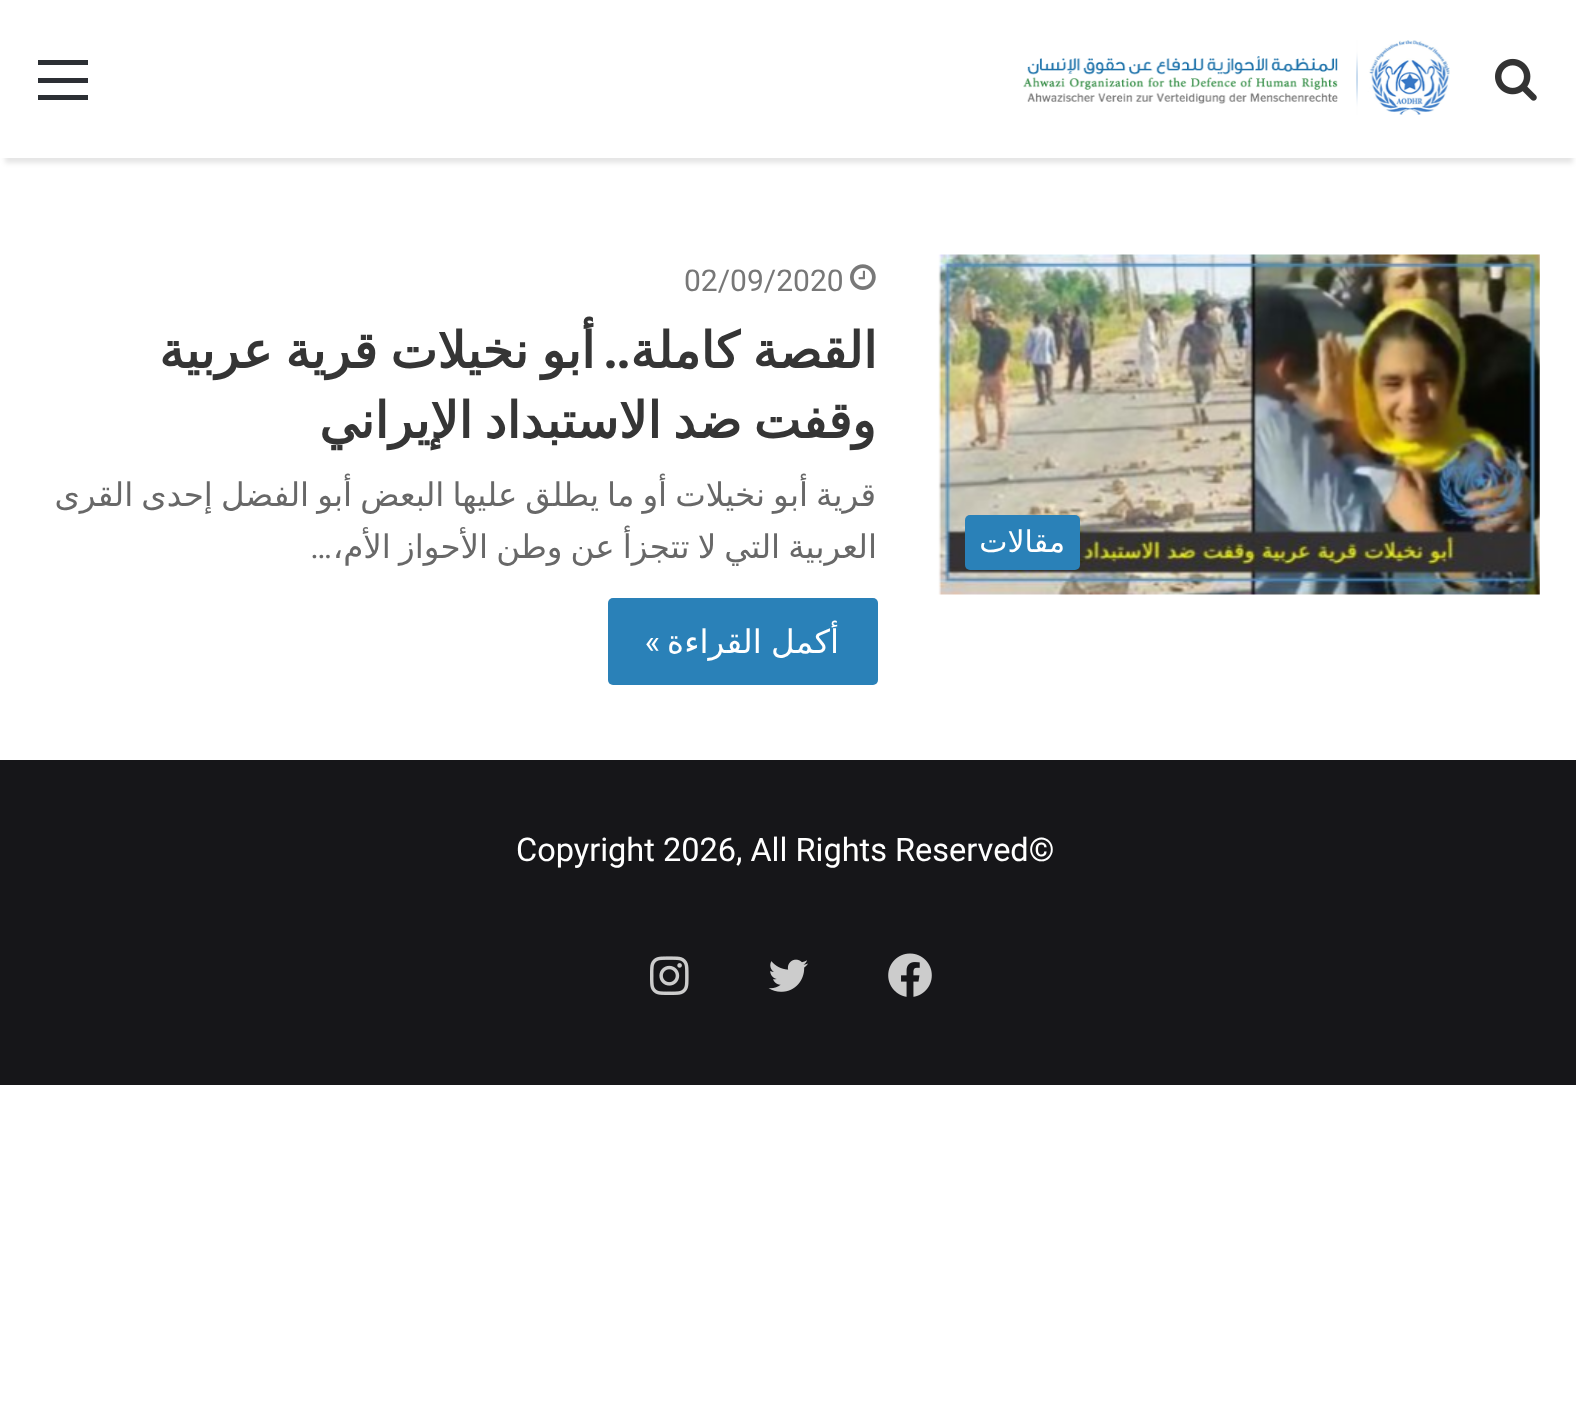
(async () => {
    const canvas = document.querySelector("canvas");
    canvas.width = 1576;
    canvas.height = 1427;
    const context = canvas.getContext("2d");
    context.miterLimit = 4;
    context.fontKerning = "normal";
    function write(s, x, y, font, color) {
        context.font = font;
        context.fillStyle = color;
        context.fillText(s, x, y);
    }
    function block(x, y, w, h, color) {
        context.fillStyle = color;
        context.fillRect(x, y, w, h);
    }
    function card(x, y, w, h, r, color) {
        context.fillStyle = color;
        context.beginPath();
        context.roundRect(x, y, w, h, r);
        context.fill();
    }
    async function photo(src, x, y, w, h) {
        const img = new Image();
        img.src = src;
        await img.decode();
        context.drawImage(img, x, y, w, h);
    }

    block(0, 0, 1576, 1427, "rgb(255, 255, 255)");
    context.save();
    context.beginPath();
    context.moveTo(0, 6);
    context.lineTo(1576, 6);
    context.lineTo(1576, 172);
    context.lineTo(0, 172);
    context.closePath();
    context.moveTo(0, 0);
    context.lineTo(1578, 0);
    context.lineTo(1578, 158);
    context.lineTo(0, 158);
    context.closePath();
    context.clip("evenodd");
    context.fillStyle = "rgba(0, 0, 0, 0.1)";
    context.filter = "blur(2.5px)";
    context.beginPath();
    context.rect(5, 15, 1568, 148);
    context.fill();
    context.filter = "none";
    context.restore();
    block(3, 157, 1572, 1, "rgba(255, 255, 255, 0.95)");
    await photo("media/1.png", 1495, 58, 42, 43);
    await photo("media/2.png", 1023, 40, 427, 75);
    block(38, 78, 50, 5, "rgb(44, 47, 52)");
    block(38, 60, 50, 5, "rgb(44, 47, 52)");
    block(38, 95, 50, 5, "rgb(44, 47, 52)");
    await photo("media/3.png", 938, 254, 602, 341);
    card(965, 515, 115, 55, 5, "rgb(42, 129, 184)");
    context.direction = "rtl";
    write("مقالات", 1065, 552, "30px DejaVu Sans", "rgb(255, 255, 255)");
    await photo("media/4.png", 850, 264, 26, 26);
    context.direction = "ltr";
    write("02/09/2020", 684, 291, "30px Roboto", "rgb(119, 119, 119)");
    context.wordSpacing = "-3px";
    context.direction = "rtl";
    write("القصة كاملة", 877, 368, "bold 50px DejaVu Sans", "rgb(53, 53, 53)");
    context.wordSpacing = "0px";
    write("..", 630, 368, "600 50px Poppins", "rgb(53, 53, 53)");
    context.wordSpacing = "-3px";
    write("أبو نخيلات قرية عربية", 595, 368, "bold 50px DejaVu Sans", "rgb(53, 53, 53)");
    context.wordSpacing = "-4px";
    write("وقفت ضد الاستبداد الإيراني", 876, 438, "bold 50px DejaVu Sans", "rgb(53, 53, 53)");
    context.wordSpacing = "-2.25px";
    write("قرية أبو نخيلات أو ما يطلق عليها البعض أبو الفضل إحدى القرى", 876, 506, "32.5px DejaVu Sans", "rgb(104, 104, 104)");
    write("العربية التي لا تتجزأ عن وطن الأحواز الأم،", 877, 558, "32.5px DejaVu Sans", "rgb(104, 104, 104)");
    context.wordSpacing = "0px";
    write("…", 332, 558, "32.5px Roboto", "rgb(104, 104, 104)");
    card(608, 598, 270, 87, 5, "rgb(42, 129, 184)");
    context.wordSpacing = "-1px";
    write("أكمل القراءة", 839, 653, "32.5px DejaVu Sans", "rgb(255, 255, 255)");
    context.wordSpacing = "0px";
    write("»", 660, 653, "32.5px Roboto", "rgb(255, 255, 255)");
    block(0, 760, 1576, 325, "rgb(22, 22, 25)");
    context.direction = "ltr";
    write("Copyright 2026, All Rights Reserved©", 516, 861, "32.5px Roboto", "rgb(255, 255, 255)");
    await photo("media/5.png", 888, 953, 44, 44);
    await photo("media/6.png", 768, 959, 40, 33);
    await photo("media/7.png", 650, 956, 39, 39);
})();
